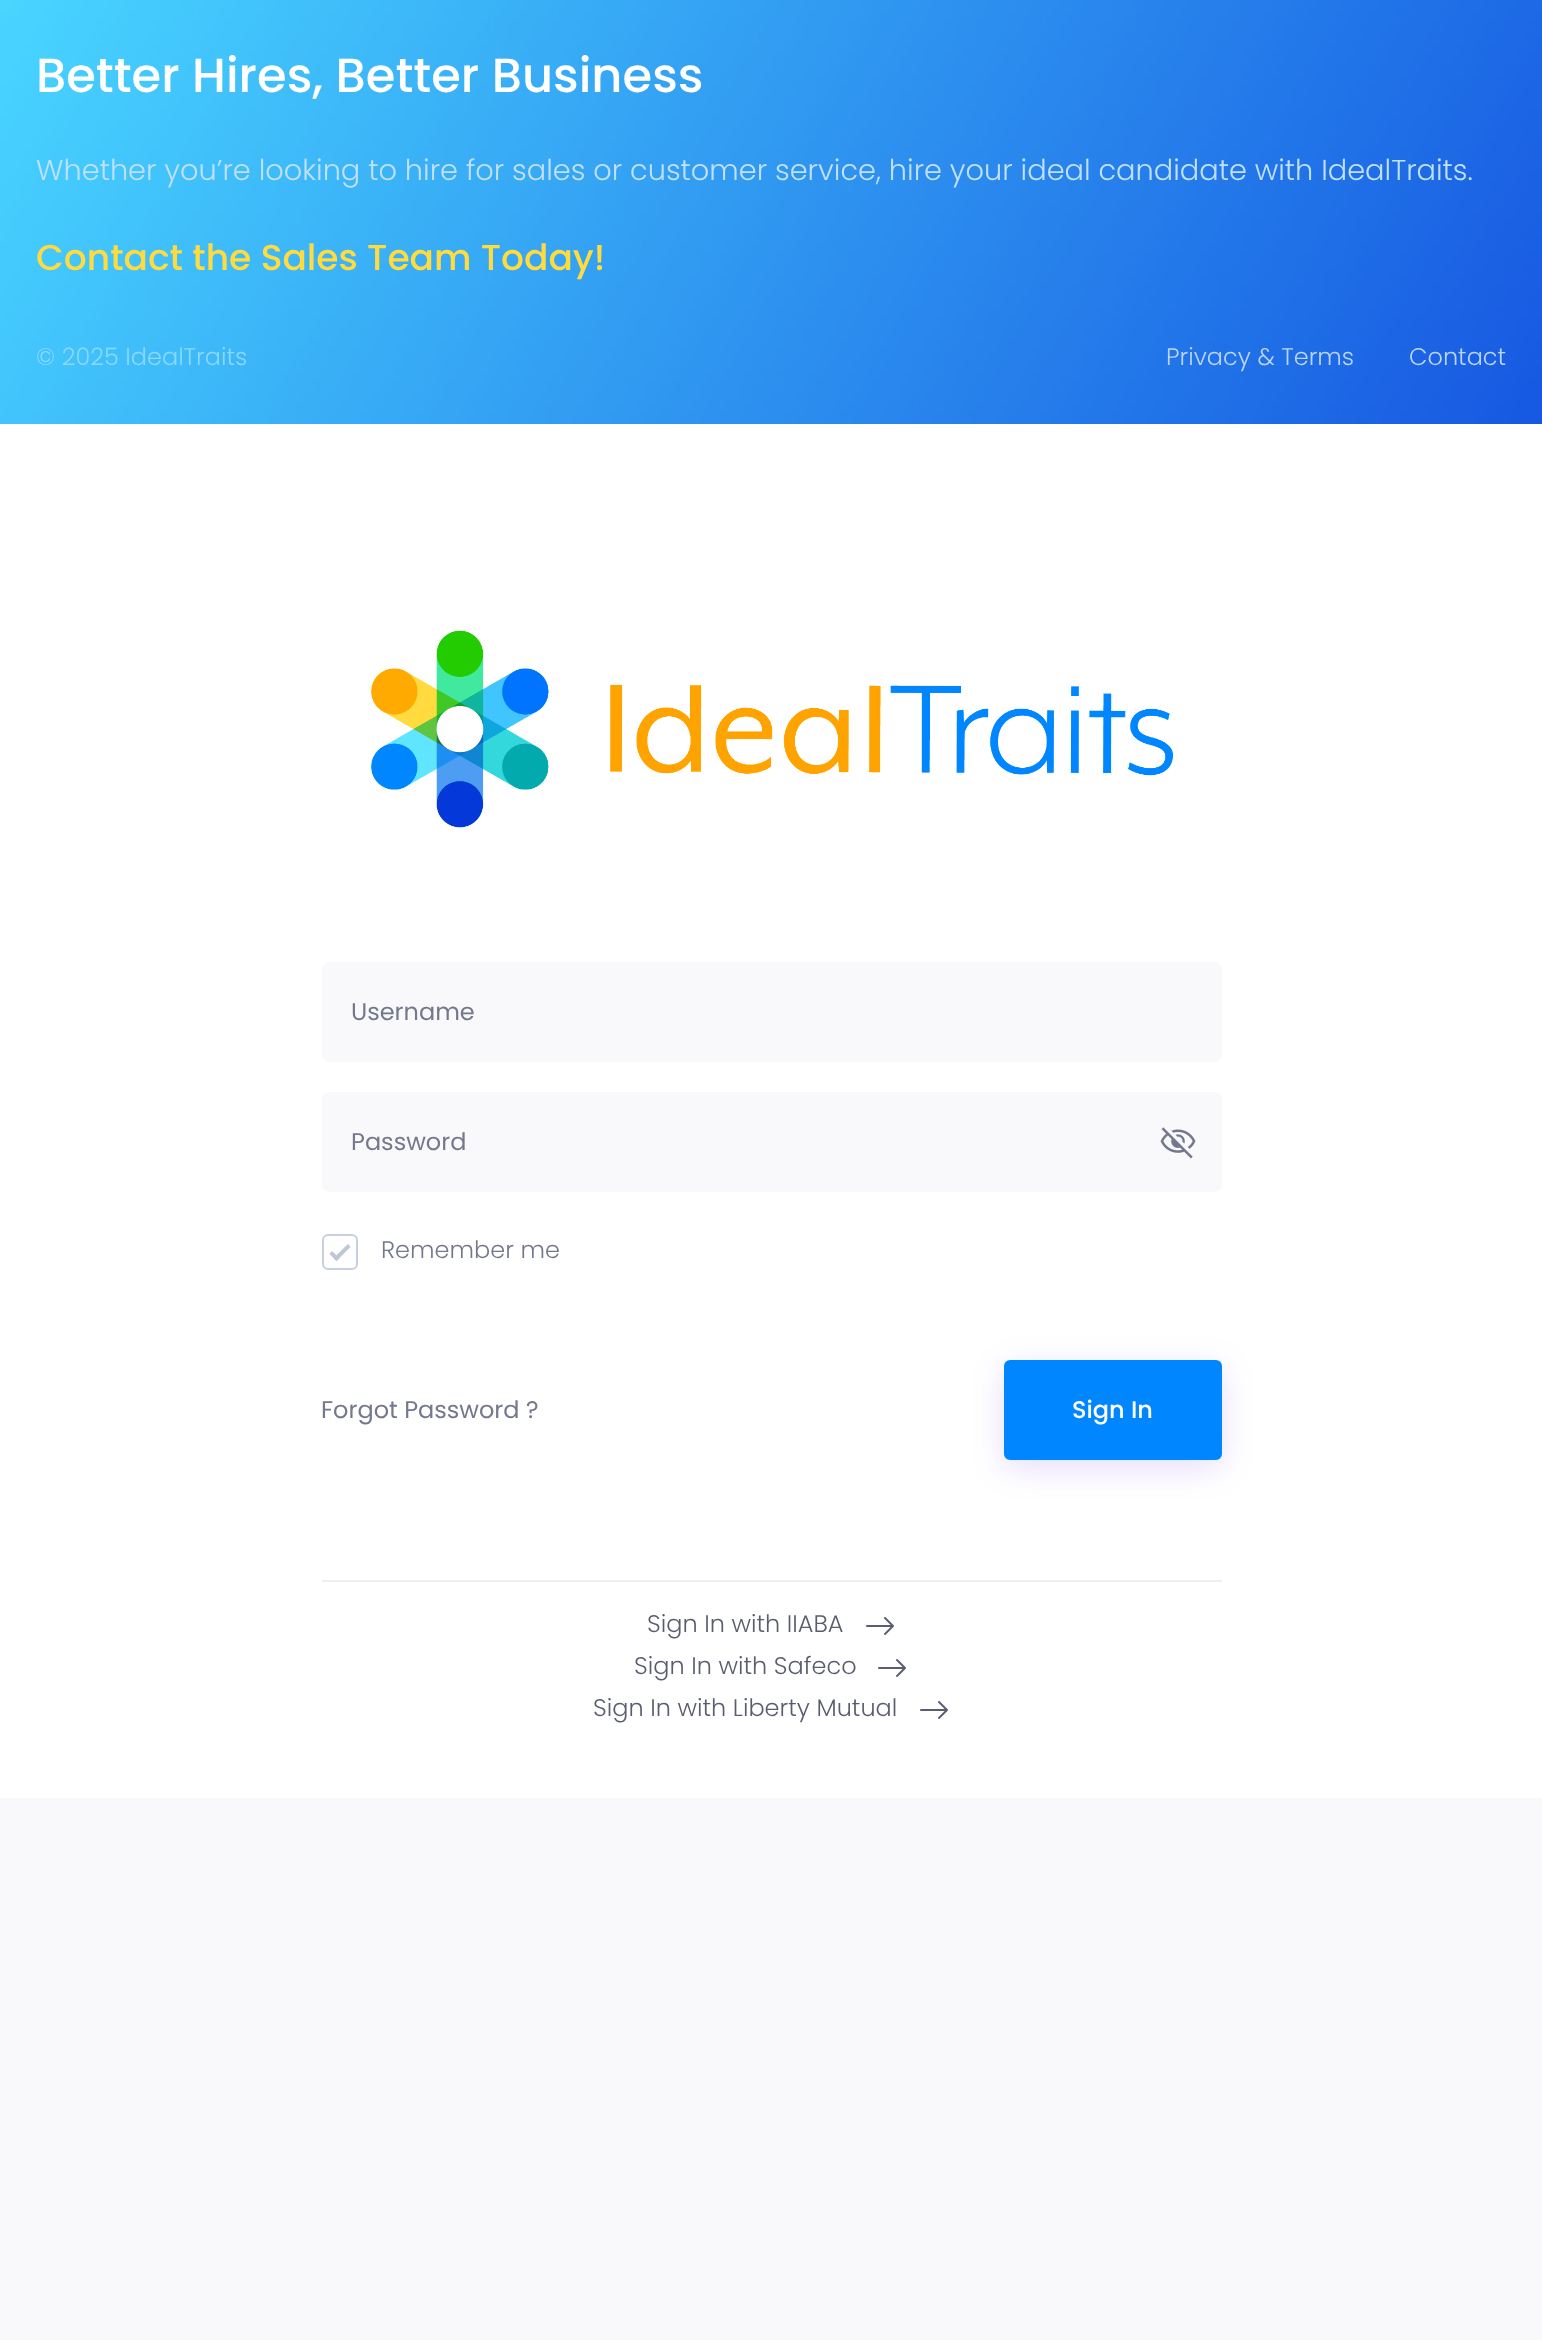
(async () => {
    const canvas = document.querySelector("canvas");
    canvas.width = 1542;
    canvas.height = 2340;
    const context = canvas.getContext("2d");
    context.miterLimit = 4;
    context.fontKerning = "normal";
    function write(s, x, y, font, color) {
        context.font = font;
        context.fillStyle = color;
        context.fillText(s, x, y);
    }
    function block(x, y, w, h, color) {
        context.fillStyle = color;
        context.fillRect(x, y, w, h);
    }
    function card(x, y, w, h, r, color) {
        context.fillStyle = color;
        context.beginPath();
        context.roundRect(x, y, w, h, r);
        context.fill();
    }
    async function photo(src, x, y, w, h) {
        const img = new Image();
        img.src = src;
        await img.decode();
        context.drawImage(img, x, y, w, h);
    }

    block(0, 0, 1542, 2340, "rgb(249, 249, 252)");
    await photo("media/1.png", 0, 0, 1542, 424);
    write("Better Hires, Better Business", 36, 92, "500 48px Poppins", "rgb(255, 255, 255)");
    write("Whether you’re looking to hire for sales or customer service, hire your ideal candidate with IdealTraits.", 36, 180, "300 28.8px Poppins", "rgb(193, 224, 251)");
    write("Contact the Sales Team Today!", 36, 270, "500 36px Poppins", "rgb(255, 219, 64)");
    write("© 2025 IdealTraits", 36, 365, "300 24px Poppins", "rgb(140, 216, 252)");
    write("Privacy & Terms", 1166, 365, "300 24px Poppins", "rgb(188, 212, 248)");
    write("Contact", 1409, 365, "300 24px Poppins", "rgb(188, 212, 248)");
    block(0, 424, 1542, 1374, "rgb(255, 255, 255)");
    await photo("media/2.png", 371, 630, 803, 198);
    card(322, 962, 900, 100, 8, "rgb(249, 249, 251)");
    write("Username", 351, 1020, "24px Poppins", "rgb(116, 120, 141)");
    card(322, 1092, 900, 100, 8, "rgb(249, 249, 251)");
    write("Password", 351, 1150, "24px Poppins", "rgb(116, 120, 141)");
    await photo("media/3.png", 1160, 1127, 36, 32);
    context.beginPath();
    context.roundRect(323, 1235, 34, 34, 5);
    context.strokeStyle = "rgb(200, 207, 221)";
    context.lineWidth = 2;
    context.stroke();
    context.fillStyle = "rgb(191, 199, 215)";
    context.beginPath();
    context.moveTo(348, 1244);
    context.lineTo(350.5, 1247);
    context.lineTo(336.5, 1261);
    context.lineTo(333.5, 1258);
    context.closePath();
    context.fill();
    context.beginPath();
    context.moveTo(332, 1251);
    context.lineTo(339.5, 1258);
    context.lineTo(336.5, 1261);
    context.lineTo(329.5, 1254);
    context.closePath();
    context.fill();
    write("Remember me", 381, 1258, "300 24px Poppins", "rgb(116, 120, 141)");
    write("Forgot Password ?", 321, 1418, "24px Poppins", "rgb(116, 120, 141)");
    context.fillStyle = "rgba(89, 29, 241, 0.15)";
    context.filter = "blur(16px)";
    context.beginPath();
    context.roundRect(1004, 1368, 218, 100, 6);
    context.fill();
    context.filter = "none";
    context.fillStyle = "rgb(0, 134, 255)";
    context.beginPath();
    context.roundRect(1005, 1361, 216, 98, 5);
    context.fill();
    context.strokeStyle = "rgb(0, 134, 255)";
    context.stroke();
    write("Sign In", 1072, 1418, "500 24px Poppins", "rgb(255, 255, 255)");
    block(322, 1580, 900, 2, "rgb(238, 238, 244)");
    write("Sign In with IIABA", 647, 1632, "300 24px Poppins", "rgb(89, 93, 110)");
    await photo("media/4.png", 866, 1617, 28, 18);
    write("Sign In with Safeco", 634, 1674, "300 24px Poppins", "rgb(89, 93, 110)");
    await photo("media/4.png", 878, 1659, 28, 18);
    write("Sign In with Liberty Mutual", 593, 1716, "300 24px Poppins", "rgb(89, 93, 110)");
    await photo("media/4.png", 920, 1701, 28, 18);
})();
